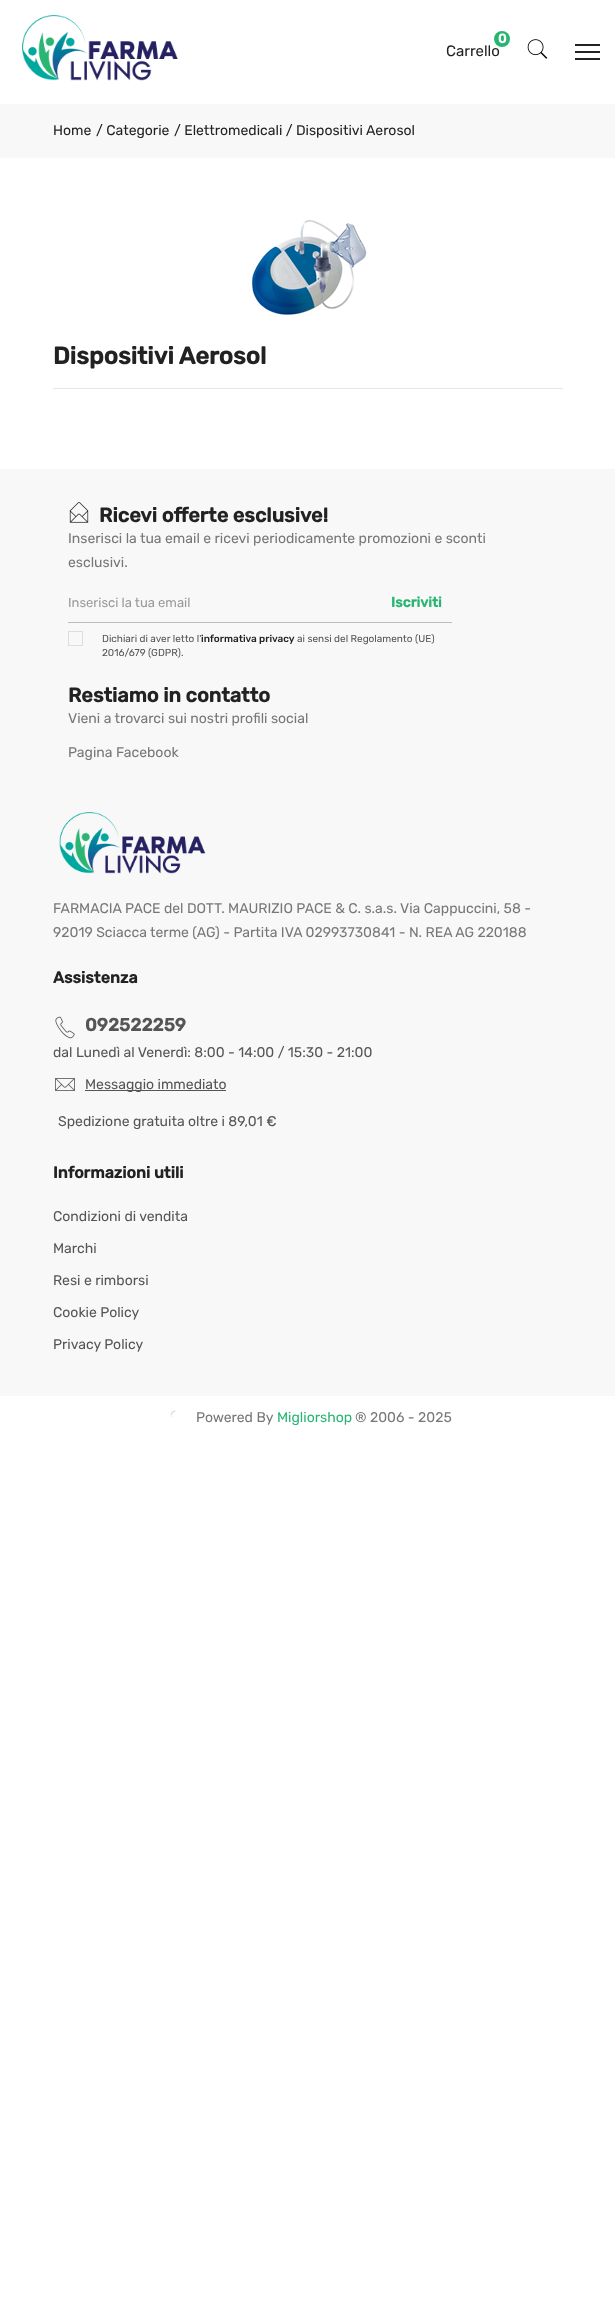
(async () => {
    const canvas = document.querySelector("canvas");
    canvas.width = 615;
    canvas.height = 2298;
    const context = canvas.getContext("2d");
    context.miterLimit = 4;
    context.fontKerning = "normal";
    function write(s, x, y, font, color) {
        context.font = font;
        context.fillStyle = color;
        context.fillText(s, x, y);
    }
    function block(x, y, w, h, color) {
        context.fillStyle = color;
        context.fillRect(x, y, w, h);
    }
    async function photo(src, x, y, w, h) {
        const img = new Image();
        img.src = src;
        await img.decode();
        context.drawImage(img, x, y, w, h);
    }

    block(0, 0, 615, 2298, "rgb(255, 255, 255)");
    await photo("media/1.png", 22, 15, 156, 66);
    write("Carrello", 446, 56, "15px Rubik", "rgb(34, 34, 34)");
    context.fillStyle = "rgb(40, 181, 114)";
    context.beginPath();
    context.arc(502, 39, 8, 0, Math.PI * 2);
    context.fill();
    write("0", 498, 43, "bold 13px Rubik", "rgb(255, 255, 255)");
    await photo("media/2.png", 527, 39, 21, 20);
    block(575, 44, 25, 2, "rgb(34, 34, 34)");
    block(575, 51, 25, 2, "rgb(34, 34, 34)");
    block(575, 58, 25, 2, "rgb(34, 34, 34)");
    block(0, 104, 615, 54, "rgb(248, 248, 248)");
    write("Home", 53, 135, "14px Rubik", "rgb(34, 34, 34)");
    write("/ Categorie", 96, 135, "14px Rubik", "rgb(34, 34, 34)");
    write("/ Elettromedicali / Dispositivi Aerosol", 174, 135, "14px Rubik", "rgb(34, 34, 34)");
    await photo("media/3.png", 251, 219, 116, 96);
    write("Dispositivi Aerosol", 53, 364, "bold 24px Rubik", "rgb(34, 34, 34)");
    block(53, 388, 510, 1, "rgb(230, 230, 230)");
    block(0, 469, 615, 927, "rgb(248, 248, 248)");
    await photo("media/4.png", 69, 502, 20, 21);
    write("Ricevi offerte esclusive!", 99, 522, "bold 20px Rubik", "rgb(34, 34, 34)");
    write("Inserisci la tua email e ricevi periodicamente promozioni e sconti", 68, 543, "14px Rubik", "rgb(119, 119, 119)");
    write("esclusivi.", 68, 567, "14px Rubik", "rgb(119, 119, 119)");
    block(68, 622, 384, 1, "rgb(188, 188, 188)");
    write("Inserisci la tua email", 68, 607, "13px Rubik", "rgb(153, 153, 153)");
    write("Iscriviti", 391, 607, "bold 14px Rubik", "rgb(40, 181, 114)");
    context.strokeStyle = "rgb(221, 221, 221)";
    context.strokeRect(68.5, 631.5, 14, 14);
    write("Dichiari di aver letto l'", 102, 642, "10px Rubik", "rgb(85, 85, 85)");
    write("informativa privacy", 201, 642, "500 10px Rubik", "rgb(34, 34, 34)");
    write("ai sensi del Regolamento (UE)", 297, 642, "10px Rubik", "rgb(85, 85, 85)");
    write("2016/679 (GDPR).", 102, 656, "10px Rubik", "rgb(85, 85, 85)");
    write("Restiamo in contatto", 68, 702, "bold 20px Rubik", "rgb(34, 34, 34)");
    write("Vieni a trovarci sui nostri profili social", 68, 723, "14px Rubik", "rgb(119, 119, 119)");
    write("Pagina Facebook", 68, 757, "14px Rubik", "rgb(119, 119, 119)");
    await photo("media/5.png", 59, 812, 147, 62);
    write("FARMACIA PACE del DOTT. MAURIZIO PACE & C. s.a.s. Via Cappuccini, 58 -", 53, 913, "14px Rubik", "rgb(119, 119, 119)");
    write("92019 Sciacca terme (AG) - Partita IVA 02993730841 - N. REA AG 220188", 53, 937, "14px Rubik", "rgb(119, 119, 119)");
    write("Assistenza", 53, 983, "bold 16px Rubik", "rgb(34, 34, 34)");
    await photo("media/6.png", 55, 1016, 20, 23);
    write("092522259", 85, 1031, "bold 18px Rubik", "rgb(85, 85, 85)");
    write("dal Lunedì al Venerdì: 8:00 - 14:00 / 15:30 - 21:00", 53, 1057, "14px Rubik", "rgb(85, 85, 85)");
    await photo("media/7.png", 55, 1078, 20, 13);
    block(85, 1090, 141, 1, "rgb(85, 85, 85)");
    write("Messaggio immediato", 85, 1089, "14px Rubik", "rgb(85, 85, 85)");
    write("Spedizione gratuita oltre i 89,01 €", 58, 1126, "14px Rubik", "rgb(85, 85, 85)");
    write("Informazioni utili", 53, 1178, "bold 16px Rubik", "rgb(34, 34, 34)");
    write("Condizioni di vendita", 53, 1221, "14px Rubik", "rgb(85, 85, 85)");
    write("Marchi", 53, 1253, "14px Rubik", "rgb(85, 85, 85)");
    write("Resi e rimborsi", 53, 1285, "14px Rubik", "rgb(85, 85, 85)");
    write("Cookie Policy", 53, 1317, "14px Rubik", "rgb(85, 85, 85)");
    write("Privacy Policy", 53, 1349, "14px Rubik", "rgb(85, 85, 85)");
    await photo("media/8.png", 170, 1410, 6, 8);
    write("Powered By", 196, 1422, "14px Rubik", "rgb(119, 119, 119)");
    write("Migliorshop", 277, 1422, "14px Rubik", "rgb(40, 181, 114)");
    write("® 2006 - 2025", 355, 1422, "14px Rubik", "rgb(119, 119, 119)");
})();
